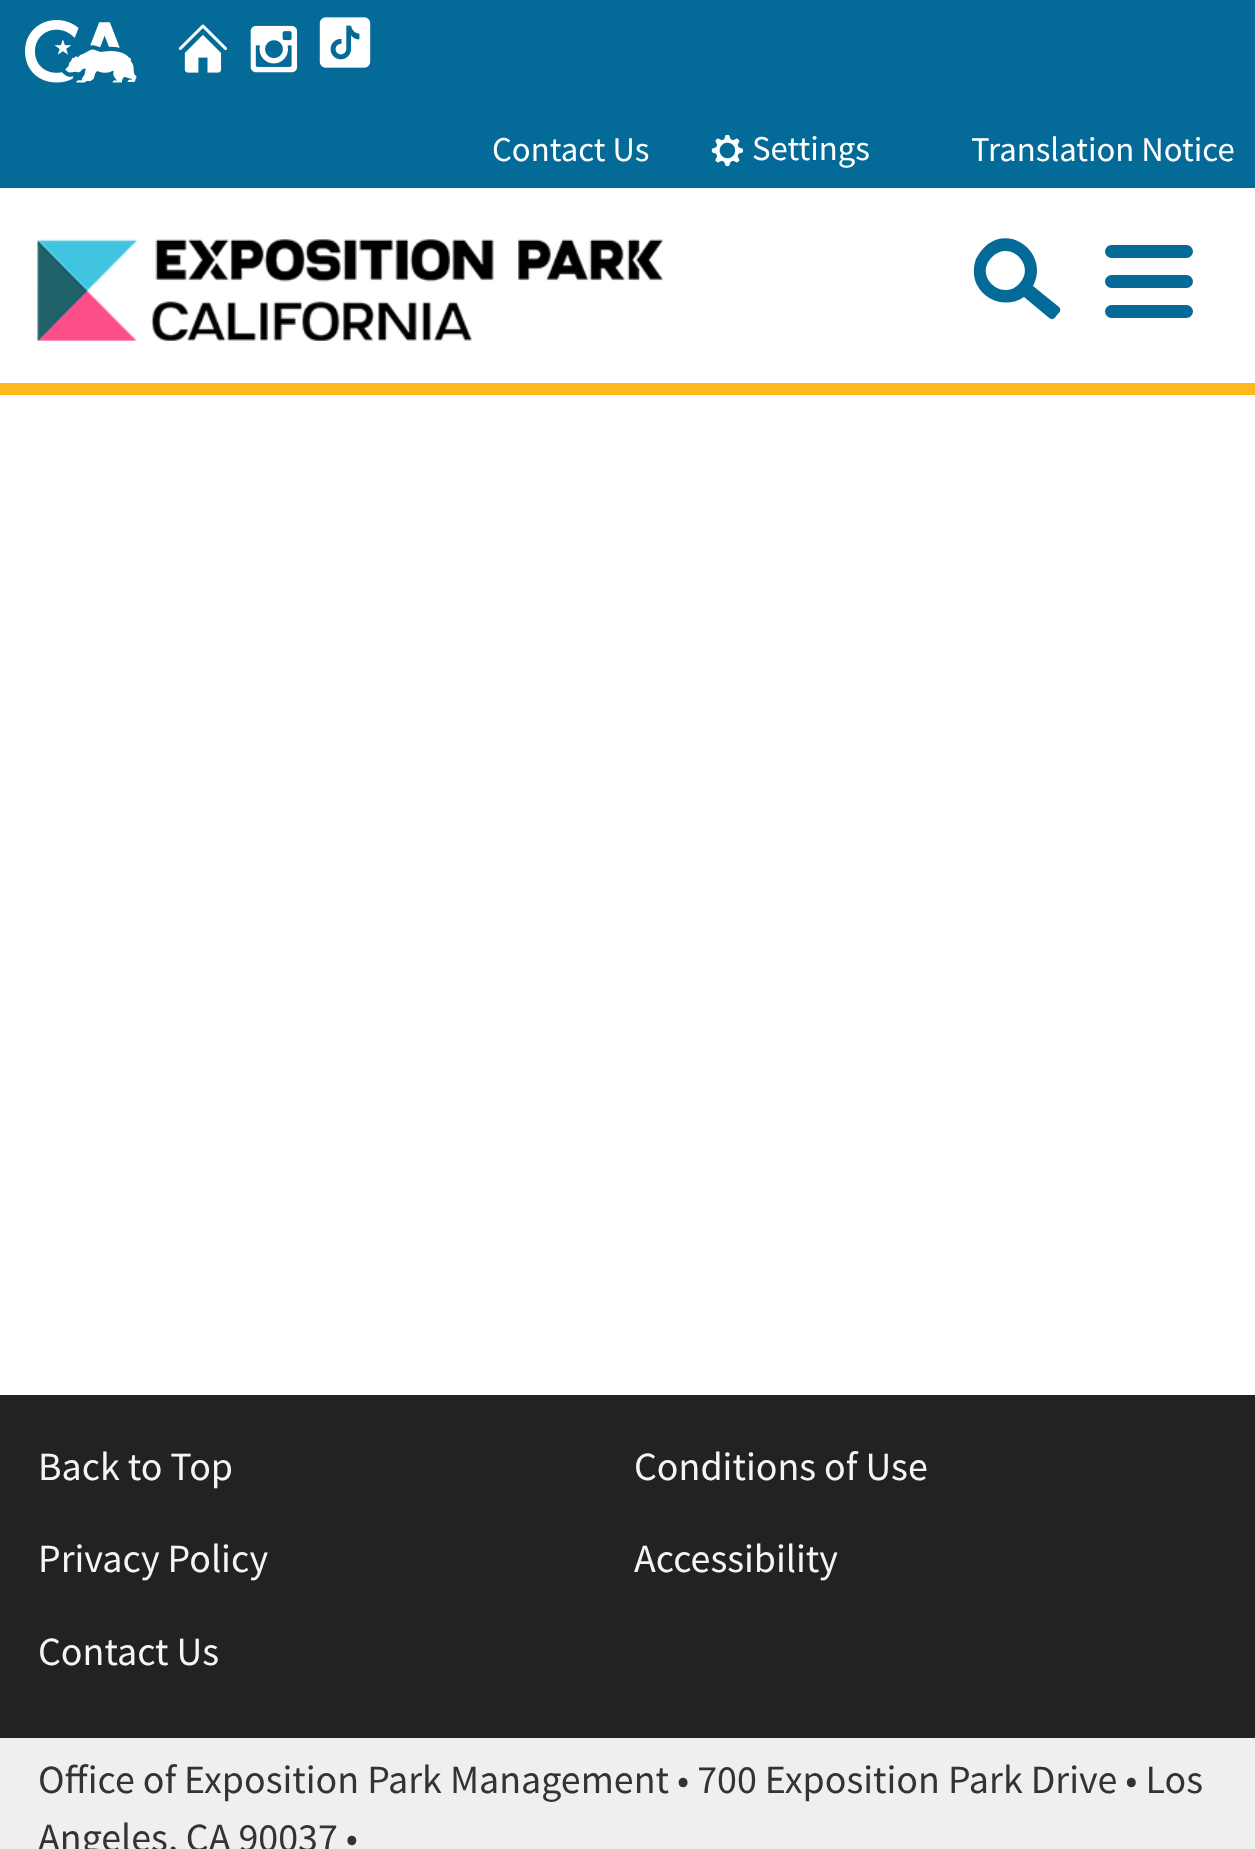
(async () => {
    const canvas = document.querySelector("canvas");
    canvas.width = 1255;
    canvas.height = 1849;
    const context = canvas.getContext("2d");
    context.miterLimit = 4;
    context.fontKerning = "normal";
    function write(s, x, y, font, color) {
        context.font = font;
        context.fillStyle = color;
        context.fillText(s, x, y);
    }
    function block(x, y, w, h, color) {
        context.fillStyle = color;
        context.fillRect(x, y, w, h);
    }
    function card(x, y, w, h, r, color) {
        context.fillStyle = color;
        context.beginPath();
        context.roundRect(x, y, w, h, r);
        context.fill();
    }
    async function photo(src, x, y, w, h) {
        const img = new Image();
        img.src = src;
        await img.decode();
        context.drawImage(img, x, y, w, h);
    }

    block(0, 0, 1255, 1849, "rgb(255, 255, 255)");
    block(0, 0, 1255, 188, "rgb(4, 107, 153)");
    await photo("media/1.png", 25, 20, 112, 63);
    await photo("media/2.png", 178, 24, 49, 49);
    await photo("media/3.png", 250, 25, 48, 48);
    await photo("media/4.png", 319, 17, 52, 51);
    write("Contact Us", 492, 161, "34.75px Source Sans Pro", "rgb(255, 255, 255)");
    await photo("media/5.png", 711, 134, 32, 33);
    write("Settings", 752, 160, "34.75px Source Sans Pro", "rgb(255, 255, 255)");
    write("Translation Notice", 971, 161, "34.75px Source Sans Pro", "rgb(255, 255, 255)");
    await photo("media/6.png", 37, 239, 626, 102);
    context.fillStyle = "rgb(4, 107, 153)";
    context.beginPath();
    context.moveTo(1059, 307);
    context.lineTo(1033, 286);
    context.bezierCurveTo(1049, 257, 1015, 225, 988, 244);
    context.bezierCurveTo(983, 248, 979, 253, 976, 259);
    context.bezierCurveTo(973, 267, 973, 277, 977, 285);
    context.bezierCurveTo(986, 302, 1008, 308, 1024, 297);
    context.lineTo(1048, 317);
    context.bezierCurveTo(1053, 321, 1054, 319, 1057, 315);
    context.bezierCurveTo(1059, 313, 1062, 310, 1059, 307);
    context.closePath();
    context.moveTo(1019, 284);
    context.bezierCurveTo(1002, 302, 973, 276, 992, 257);
    context.bezierCurveTo(1010, 239, 1037, 266, 1019, 284);
    context.closePath();
    context.fill();
    card(1105, 245, 88, 13, 6.5, "rgb(4, 107, 153)");
    card(1105, 275, 88, 13, 6.5, "rgb(4, 107, 153)");
    card(1105, 305, 88, 13, 6.5, "rgb(4, 107, 153)");
    block(0, 383, 1255, 12, "rgb(253, 184, 30)");
    block(0, 1395, 1255, 343, "rgb(34, 34, 34)");
    write("Back to Top", 38, 1480, "40px Source Sans Pro", "rgb(245, 245, 245)");
    write("Conditions of Use", 634, 1480, "40px Source Sans Pro", "rgb(245, 245, 245)");
    write("Privacy Policy", 38, 1572, "40px Source Sans Pro", "rgb(245, 245, 245)");
    write("Accessibility", 634, 1572, "40px Source Sans Pro", "rgb(245, 245, 245)");
    write("Contact Us", 38, 1665, "40px Source Sans Pro", "rgb(245, 245, 245)");
    block(0, 1738, 1255, 111, "rgb(239, 239, 239)");
    write("Office of Exposition Park Management • 700 Exposition Park Drive • Los", 38, 1793, "40px Source Sans Pro", "rgb(51, 51, 51)");
    write("Angeles, CA 90037 •", 38, 1851, "40px Source Sans Pro", "rgb(51, 51, 51)");
})();
